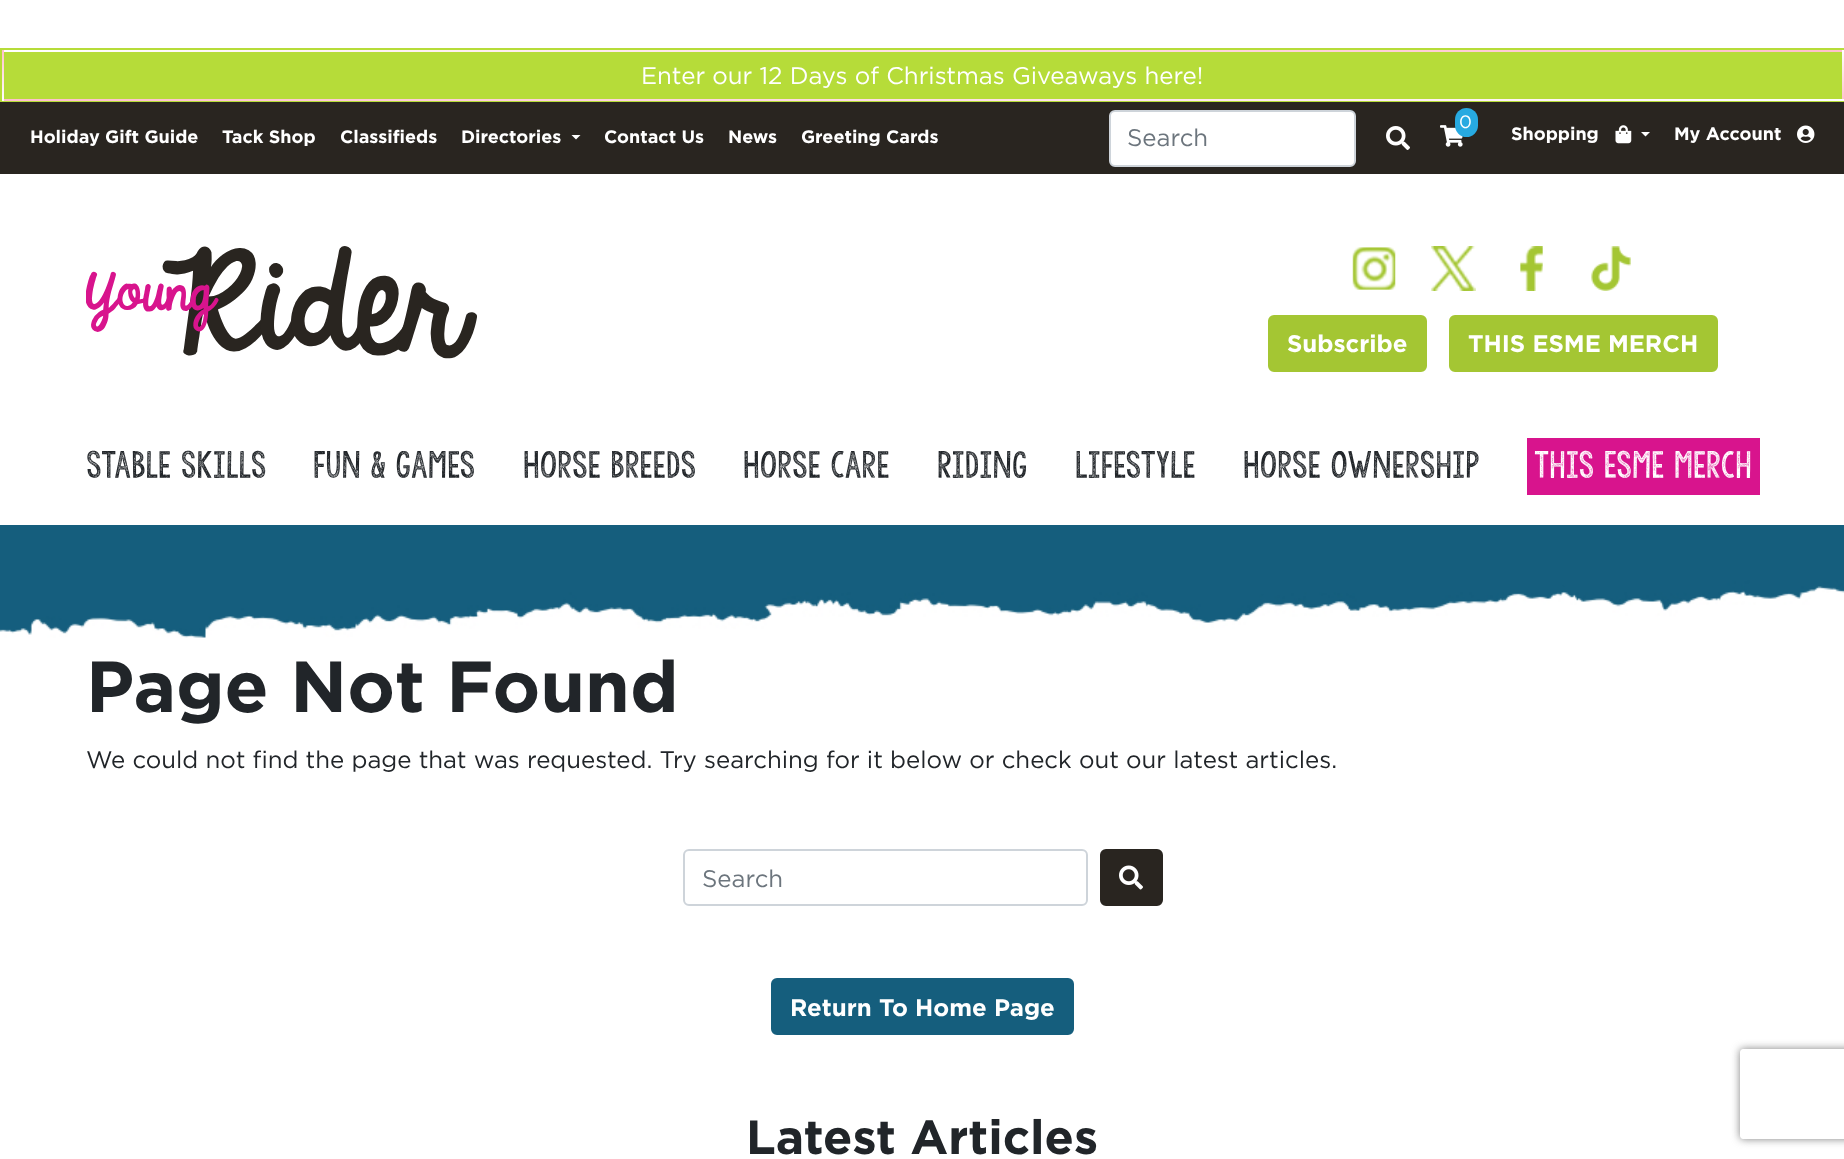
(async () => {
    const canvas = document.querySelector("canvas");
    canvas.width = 1844;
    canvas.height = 1159;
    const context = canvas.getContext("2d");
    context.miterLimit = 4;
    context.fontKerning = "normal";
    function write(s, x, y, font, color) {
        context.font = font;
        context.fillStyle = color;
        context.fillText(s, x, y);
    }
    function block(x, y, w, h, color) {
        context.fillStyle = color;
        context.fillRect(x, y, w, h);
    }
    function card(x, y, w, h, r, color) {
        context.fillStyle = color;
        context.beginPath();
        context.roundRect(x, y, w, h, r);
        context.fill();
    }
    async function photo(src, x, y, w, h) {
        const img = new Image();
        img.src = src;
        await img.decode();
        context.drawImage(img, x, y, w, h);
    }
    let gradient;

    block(0, 0, 1844, 1159, "rgb(255, 255, 255)");
    block(0, 48, 1844, 54, "rgb(182, 220, 57)");
    gradient = context.createLinearGradient(1.5, 50, 1844, 50);
    gradient.addColorStop(0, "rgb(255, 255, 255)");
    gradient.addColorStop(1, "rgb(255, 192, 203)");
    context.fillStyle = gradient;
    context.fillRect(2, 50, 1842, 2);
    gradient = context.createLinearGradient(1843, 50, 1843, 101);
    gradient.addColorStop(0, "rgb(255, 255, 255)");
    gradient.addColorStop(1, "rgb(255, 192, 203)");
    context.fillStyle = gradient;
    context.fillRect(1842, 50, 2, 51);
    gradient = context.createLinearGradient(1844, 100, 1.5, 100);
    gradient.addColorStop(0, "rgb(255, 255, 255)");
    gradient.addColorStop(1, "rgb(255, 192, 203)");
    context.fillStyle = gradient;
    context.fillRect(2, 99, 1842, 2);
    gradient = context.createLinearGradient(2.2, 101, 2.2, 50);
    gradient.addColorStop(0, "rgb(255, 255, 255)");
    gradient.addColorStop(1, "rgb(255, 192, 203)");
    context.fillStyle = gradient;
    context.fillRect(2, 50, 2, 51);
    write("Enter our 12 Days of Christmas Giveaways here!", 641, 84, "24px Gotham", "rgb(255, 255, 255)");
    block(0, 102, 1844, 72, "rgb(41, 37, 32)");
    write("Holiday Gift Guide", 30, 143, "bold 18px Gotham", "rgb(255, 255, 255)");
    write("Tack Shop", 222, 143, "bold 18px Gotham", "rgb(255, 255, 255)");
    write("Classifieds", 340, 143, "bold 18px Gotham", "rgb(255, 255, 255)");
    write("Directories", 461, 143, "bold 18px Gotham", "rgb(255, 255, 255)");
    context.beginPath();
    context.moveTo(571.5, 135);
    context.lineTo(580.5, 135);
    context.lineTo(576, 139.5);
    context.closePath();
    context.fill();
    write("Contact Us", 604, 143, "bold 18px Gotham", "rgb(255, 255, 255)");
    write("News", 728, 143, "bold 18px Gotham", "rgb(255, 255, 255)");
    write("Greeting Cards", 801, 143, "bold 18px Gotham", "rgb(255, 255, 255)");
    context.beginPath();
    context.roundRect(1110, 111, 245, 55, 5);
    context.fill();
    context.strokeStyle = "rgb(206, 212, 218)";
    context.lineWidth = 2;
    context.stroke();
    write("Search", 1127, 146, "24px Gotham", "rgb(108, 117, 125)");
    await photo("media/1.png", 1386, 126, 24, 24);
    await photo("media/2.png", 1440, 125, 23, 22);
    card(1455, 108, 23, 29, 11.5, "rgb(39, 170, 225)");
    write("0", 1459, 128, "18px Gotham", "rgb(255, 255, 255)");
    write("Shopping", 1511, 140, "bold 18px Gotham", "rgb(255, 255, 255)");
    await photo("media/3.png", 1615, 125, 17, 19);
    context.beginPath();
    context.moveTo(1641, 132);
    context.lineTo(1650, 132);
    context.lineTo(1645.5, 136.5);
    context.closePath();
    context.fill();
    write("My Account", 1674, 140, "bold 18px Gotham", "rgb(255, 255, 255)");
    await photo("media/4.png", 1797, 125, 18, 18);
    block(0, 525, 1844, 45, "rgb(21, 94, 125)");
    await photo("media/5.png", 86, 246, 391, 113);
    await photo("media/6.png", 1352, 247, 44, 43);
    await photo("media/7.png", 1431, 246, 45, 45);
    await photo("media/8.png", 1520, 246, 23, 45);
    await photo("media/9.png", 1591, 246, 40, 45);
    context.fillStyle = "rgb(164, 198, 51)";
    context.beginPath();
    context.roundRect(1269, 316, 157, 55, 5);
    context.fill();
    context.strokeStyle = "rgb(164, 198, 51)";
    context.stroke();
    write("Subscribe", 1287, 352, "bold 24px Gotham", "rgb(255, 255, 255)");
    context.fillStyle = "rgb(164, 198, 51)";
    context.beginPath();
    context.roundRect(1450, 316, 267, 55, 5);
    context.fill();
    context.stroke();
    write("THIS ESME MERCH", 1468, 352, "bold 24px Gotham", "rgb(255, 255, 255)");
    write("Stable Skills", 86, 478, "30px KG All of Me", "rgb(33, 37, 41)");
    write("Fun & Games", 313, 478, "30px KG All of Me", "rgb(33, 37, 41)");
    write("Horse Breeds", 523, 478, "30px KG All of Me", "rgb(33, 37, 41)");
    write("Horse Care", 743, 478, "30px KG All of Me", "rgb(33, 37, 41)");
    write("Riding", 937, 478, "30px KG All of Me", "rgb(33, 37, 41)");
    write("Lifestyle", 1075, 478, "30px KG All of Me", "rgb(33, 37, 41)");
    write("Horse Ownership", 1243, 478, "30px KG All of Me", "rgb(33, 37, 41)");
    block(1527, 438, 233, 57, "rgb(216, 20, 141)");
    write("This Esme Merch", 1534, 478, "30px KG All of Me", "rgb(255, 255, 255)");
    await photo("media/10.png", 0, 570, 1844, 68);
    write("Page Not Found", 86, 712, "bold 72px Gotham", "rgb(33, 37, 41)");
    write("We could not find the page that was requested. Try searching for it below or check out our latest articles.", 86, 768, "24px Gotham", "rgb(33, 37, 41)");
    context.beginPath();
    context.roundRect(684, 850, 403, 55, 5);
    context.strokeStyle = "rgb(206, 212, 218)";
    context.stroke();
    write("Search", 702, 887, "24px Gotham", "rgb(108, 117, 125)");
    context.fillStyle = "rgb(41, 37, 32)";
    context.beginPath();
    context.roundRect(1101, 850, 61, 55, 5);
    context.fill();
    context.strokeStyle = "rgb(41, 37, 32)";
    context.stroke();
    await photo("media/11.png", 1119, 865, 24, 25);
    context.fillStyle = "rgb(21, 94, 125)";
    context.beginPath();
    context.roundRect(772, 979, 301, 55, 5);
    context.fill();
    context.strokeStyle = "rgb(21, 94, 125)";
    context.stroke();
    write("Return To Home Page", 790, 1016, "bold 24px Gotham", "rgb(255, 255, 255)");
    write("Latest Articles", 746, 1154, "bold 48px Gotham", "rgb(33, 37, 41)");
    context.save();
    context.beginPath();
    context.moveTo(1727, 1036);
    context.lineTo(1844, 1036);
    context.lineTo(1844, 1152);
    context.lineTo(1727, 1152);
    context.closePath();
    context.moveTo(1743, 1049);
    context.lineTo(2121, 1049);
    context.bezierCurveTo(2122.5, 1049, 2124, 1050.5, 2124, 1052);
    context.lineTo(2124, 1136);
    context.bezierCurveTo(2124, 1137.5, 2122.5, 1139, 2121, 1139);
    context.lineTo(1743, 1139);
    context.bezierCurveTo(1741.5, 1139, 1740, 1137.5, 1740, 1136);
    context.lineTo(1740, 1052);
    context.bezierCurveTo(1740, 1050.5, 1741.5, 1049, 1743, 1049);
    context.closePath();
    context.clip("evenodd");
    context.fillStyle = "rgb(128, 128, 128)";
    context.filter = "blur(4px)";
    context.beginPath();
    context.roundRect(1740, 1049, 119, 90, 3);
    context.fill();
    context.filter = "none";
    context.restore();
})();
